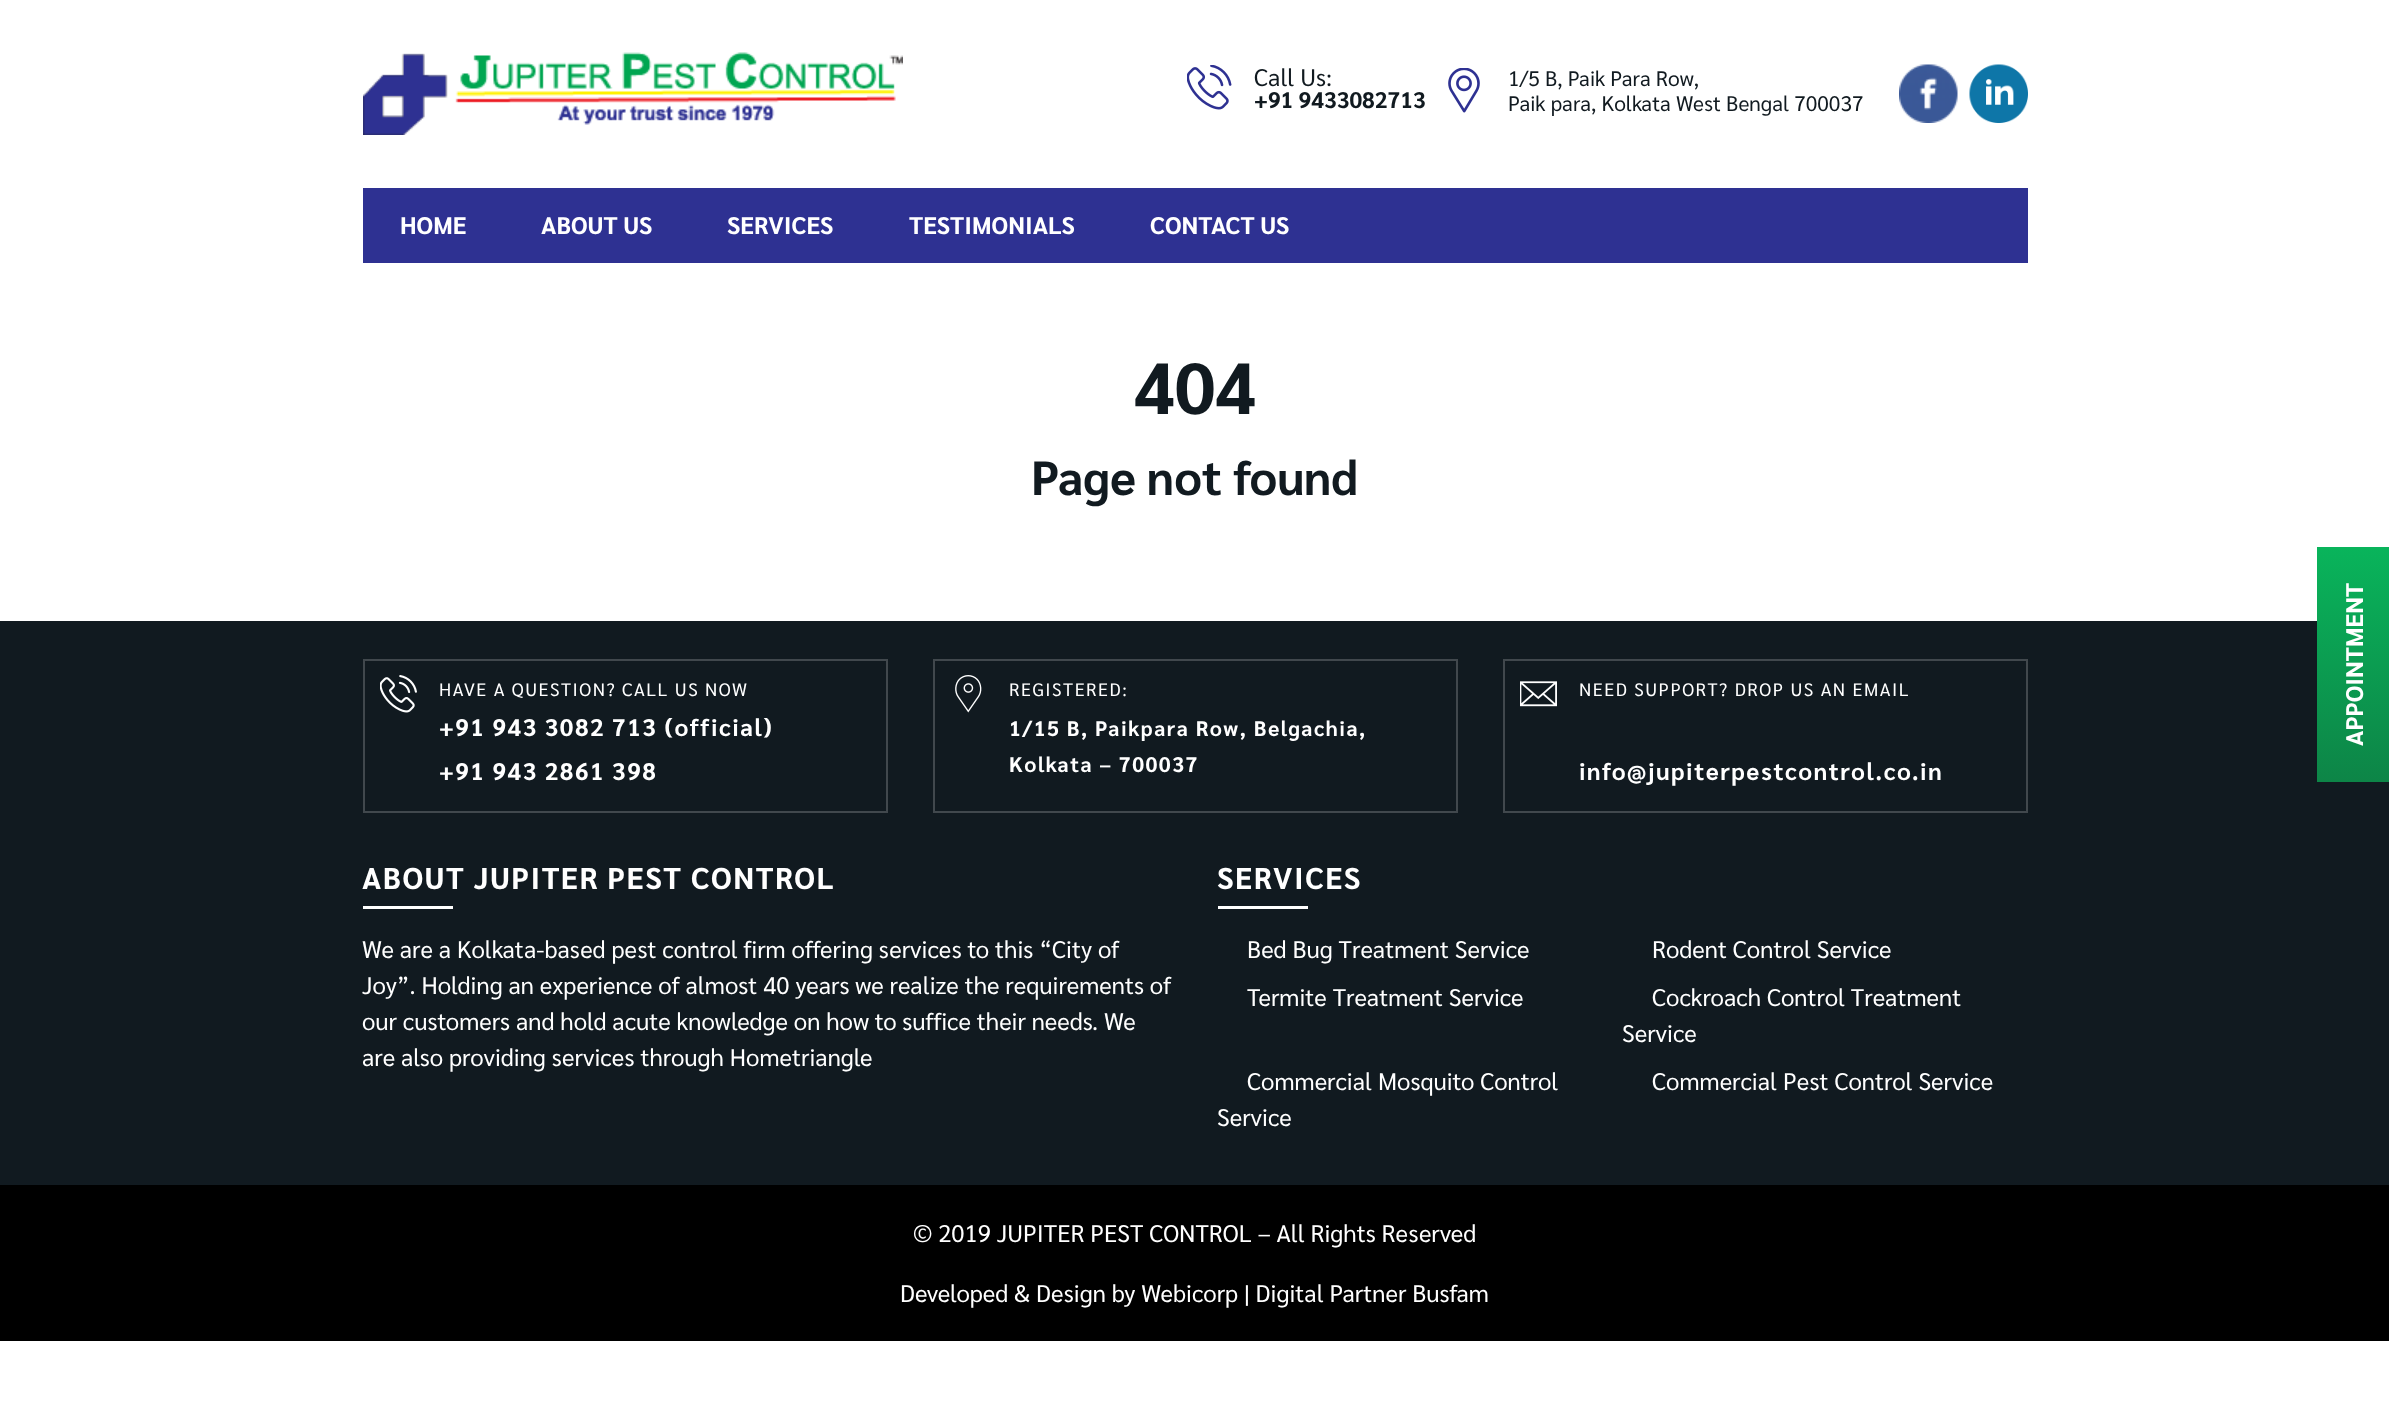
(async () => {
    const canvas = document.querySelector("canvas");
    canvas.width = 2389;
    canvas.height = 1404;
    const context = canvas.getContext("2d");
    context.miterLimit = 4;
    context.fontKerning = "normal";
    function write(s, x, y, font, color) {
        context.font = font;
        context.fillStyle = color;
        context.fillText(s, x, y);
    }
    function block(x, y, w, h, color) {
        context.fillStyle = color;
        context.fillRect(x, y, w, h);
    }
    async function photo(src, x, y, w, h) {
        const img = new Image();
        img.src = src;
        await img.decode();
        context.drawImage(img, x, y, w, h);
    }
    let gradient;

    block(0, 0, 2389, 1404, "rgb(255, 255, 255)");
    await photo("media/1.png", 363, 52, 540, 83);
    await photo("media/2.png", 1187, 65, 45, 45);
    write("Call Us:", 1254, 86, "24px Sarabun", "rgb(17, 26, 32)");
    write("+91 9433082713", 1254, 108, "bold 22.5px Sarabun", "rgb(17, 26, 32)");
    await photo("media/3.png", 1448, 68, 32, 45);
    write("1/5 B, Paik Para Row,", 1508, 86, "21px Sarabun", "rgb(17, 26, 32)");
    write("Paik para, Kolkata West Bengal 700037", 1508, 111, "21px Sarabun", "rgb(17, 26, 32)");
    await photo("media/4.png", 1899, 64, 59, 59);
    await photo("media/5.png", 1969, 64, 59, 59);
    block(363, 188, 1665, 75, "rgb(46, 49, 146)");
    write("HOME", 400, 234, "bold 24px Sarabun", "rgb(255, 255, 255)");
    write("ABOUT US", 541, 234, "bold 24px Sarabun", "rgb(255, 255, 255)");
    write("SERVICES", 727, 234, "bold 24px Sarabun", "rgb(255, 255, 255)");
    write("TESTIMONIALS", 909, 234, "bold 24px Sarabun", "rgb(255, 255, 255)");
    write("CONTACT US", 1150, 234, "bold 24px Sarabun", "rgb(255, 255, 255)");
    write("404", 1134, 414, "bold 72px Sarabun", "rgb(17, 26, 32)");
    write("Page not found", 1031, 495, "bold 48px Sarabun", "rgb(17, 26, 32)");
    block(0, 621, 2389, 564, "rgb(17, 26, 32)");
    gradient = context.createLinearGradient(2354, 782, 2354, 547);
    gradient.addColorStop(0, "rgb(13, 133, 71)");
    gradient.addColorStop(1, "rgb(9, 180, 91)");
    context.fillStyle = gradient;
    context.fillRect(2317, 547, 72, 235);
    context.font = "bold 24px Sarabun";
    context.fillStyle = "rgb(255, 255, 255)";
    context.save();
    context.translate(2363, 746);
    context.rotate(-90 * Math.PI / 180);
    context.fillText("APPOINTMENT", 0, 0);
    context.restore();
    context.strokeStyle = "rgb(65, 72, 77)";
    context.lineWidth = 2;
    context.strokeRect(364, 660, 523, 152);
    await photo("media/6.png", 380, 675, 37, 38);
    context.letterSpacing = "1.5px";
    write("HAVE A QUESTION? CALL US NOW", 439, 696, "18px Sarabun", "rgb(255, 255, 255)");
    write("+91 943 3082 713 (official)", 439, 736, "bold 24px Sarabun", "rgb(255, 255, 255)");
    write("+91 943 2861 398", 439, 780, "bold 24px Sarabun", "rgb(255, 255, 255)");
    context.strokeRect(934, 660, 523, 152);
    await photo("media/7.png", 955, 675, 27, 38);
    write("REGISTERED:", 1009, 696, "18px Sarabun", "rgb(255, 255, 255)");
    write("1/15 B, Paikpara Row, Belgachia,", 1009, 736, "bold 21px Sarabun", "rgb(255, 255, 255)");
    write("Kolkata – 700037", 1009, 772, "bold 21px Sarabun", "rgb(255, 255, 255)");
    context.strokeRect(1504, 660, 523, 152);
    await photo("media/8.png", 1520, 681, 37, 26);
    write("NEED SUPPORT? DROP US AN EMAIL", 1579, 696, "18px Sarabun", "rgb(255, 255, 255)");
    write("info@jupiterpestcontrol.co.in", 1579, 780, "bold 24px Sarabun", "rgb(255, 255, 255)");
    write("ABOUT JUPITER PEST CONTROL", 362, 889, "bold 30px Sarabun", "rgb(255, 255, 255)");
    block(363, 906, 90, 3, "rgb(255, 255, 255)");
    context.letterSpacing = "0px";
    write("We are a Kolkata-based pest control firm offering services to this “City of", 362, 958, "24px Sarabun", "rgb(255, 255, 255)");
    write("Joy”. Holding an experience of almost 40 years we realize the requirements of", 362, 994, "24px Sarabun", "rgb(255, 255, 255)");
    write("our customers and hold acute knowledge on how to suffice their needs. We", 362, 1030, "24px Sarabun", "rgb(255, 255, 255)");
    write("are also providing services through Hometriangle", 362, 1066, "24px Sarabun", "rgb(255, 255, 255)");
    context.letterSpacing = "1.5px";
    write("SERVICES", 1217, 889, "bold 30px Sarabun", "rgb(255, 255, 255)");
    block(1218, 906, 90, 3, "rgb(255, 255, 255)");
    context.letterSpacing = "0px";
    write("Bed Bug Treatment Service", 1247, 958, "24px Sarabun", "rgb(255, 255, 255)");
    write("Rodent Control Service", 1652, 958, "24px Sarabun", "rgb(255, 255, 255)");
    write("Termite Treatment Service", 1247, 1006, "24px Sarabun", "rgb(255, 255, 255)");
    write("Cockroach Control Treatment", 1652, 1006, "24px Sarabun", "rgb(255, 255, 255)");
    write("Service", 1622, 1042, "24px Sarabun", "rgb(255, 255, 255)");
    write("Commercial Mosquito Control", 1247, 1090, "24px Sarabun", "rgb(255, 255, 255)");
    write("Service", 1217, 1126, "24px Sarabun", "rgb(255, 255, 255)");
    write("Commercial Pest Control Service", 1652, 1090, "24px Sarabun", "rgb(255, 255, 255)");
    block(0, 1185, 2389, 156, "rgb(0, 0, 0)");
    write("© 2019 JUPITER PEST CONTROL – All Rights Reserved", 913, 1242, "24px Sarabun", "rgb(255, 255, 255)");
    write("Developed & Design by Webicorp | Digital Partner Busfam", 900, 1302, "24px Sarabun", "rgb(255, 255, 255)");
})();
